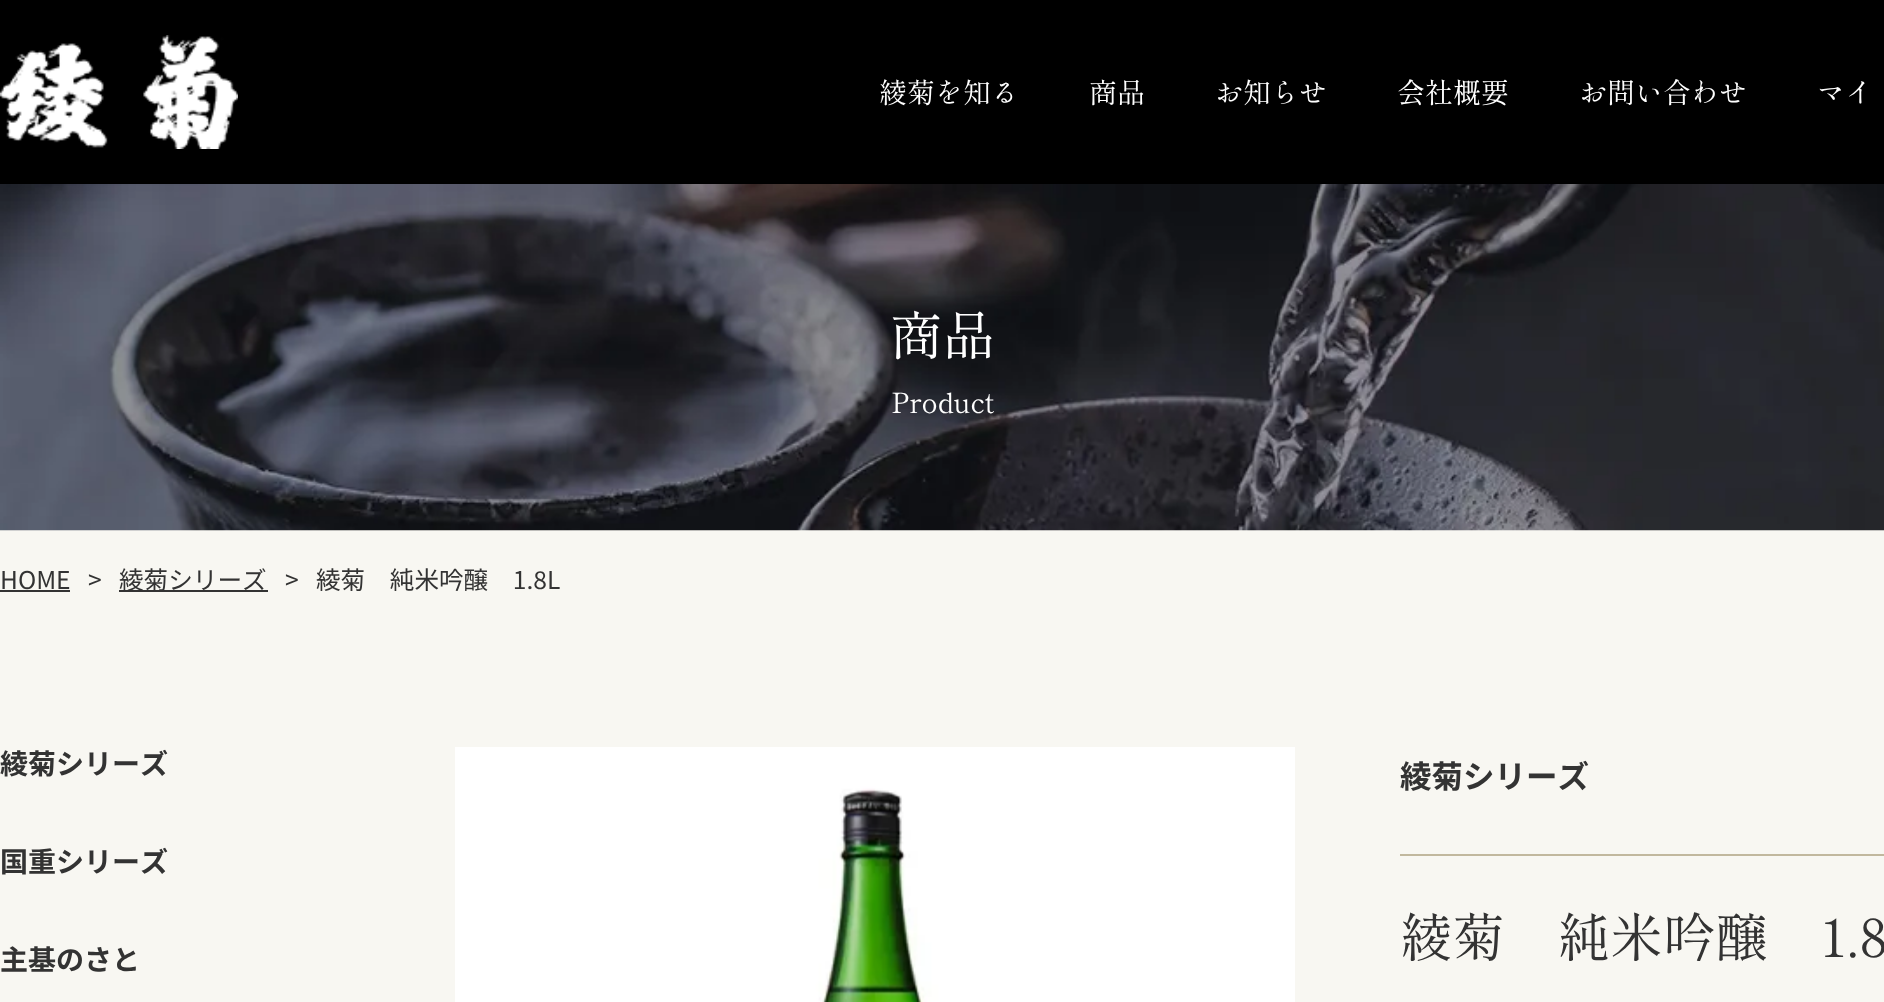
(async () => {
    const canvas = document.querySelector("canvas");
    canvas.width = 1884;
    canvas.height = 1002;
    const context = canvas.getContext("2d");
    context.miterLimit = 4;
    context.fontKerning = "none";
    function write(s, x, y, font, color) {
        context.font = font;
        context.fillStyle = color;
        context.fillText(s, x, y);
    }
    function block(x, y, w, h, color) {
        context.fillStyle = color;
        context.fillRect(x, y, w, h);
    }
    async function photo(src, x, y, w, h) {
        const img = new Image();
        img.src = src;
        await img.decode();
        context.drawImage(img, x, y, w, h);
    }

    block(0, 0, 1884, 1002, "rgb(248, 247, 242)");
    block(0, 0, 1884, 184, "rgb(0, 0, 0)");
    await photo("media/1.png", 0, 35, 238, 114);
    write("綾菊を知る", 879, 103, "28px Shippori Mincho", "rgb(255, 255, 255)");
    write("商品", 1089, 103, "28px Shippori Mincho", "rgb(255, 255, 255)");
    write("お知らせ", 1215, 103, "28px Shippori Mincho", "rgb(255, 255, 255)");
    write("会社概要", 1397, 103, "28px Shippori Mincho", "rgb(255, 255, 255)");
    write("お問い合わせ", 1579, 103, "28px Shippori Mincho", "rgb(255, 255, 255)");
    write("マイ", 1817, 103, "28px Shippori Mincho", "rgb(255, 255, 255)");
    await photo("media/2.png", 0, 184, 1884, 347);
    write("商品", 890, 355, "52.6px Shippori Mincho", "rgb(255, 255, 255)");
    write("Product", 891, 413, "28px Shippori Mincho", "rgb(255, 255, 255)");
    write("HOME", 0, 589, "24.6px Noto Sans JP", "rgb(51, 51, 51)");
    block(0, 590, 70, 2, "rgb(51, 51, 51)");
    write(">", 88, 589, "24.6px Noto Sans JP", "rgb(51, 51, 51)");
    block(119, 590, 149, 2, "rgb(51, 51, 51)");
    write("綾菊シリーズ", 119, 589, "24.6px Noto Sans JP", "rgb(51, 51, 51)");
    write(">", 285, 589, "24.6px Noto Sans JP", "rgb(51, 51, 51)");
    write("綾菊　純米吟醸　1.8L", 316, 589, "24.6px Noto Sans JP", "rgb(51, 51, 51)");
    write("綾菊シリーズ", 0, 774, "bold 28px Noto Sans JP", "rgb(51, 51, 51)");
    write("国重シリーズ", 0, 872, "bold 28px Noto Sans JP", "rgb(51, 51, 51)");
    write("主基のさと", 0, 970, "bold 28px Noto Sans JP", "rgb(51, 51, 51)");
    await photo("media/3.png", 455, 747, 840, 255);
    block(1400, 854, 484, 2, "rgb(193, 184, 158)");
    write("綾菊シリーズ", 1400, 788, "bold 31.5px Noto Sans JP", "rgb(51, 51, 51)");
    write("綾菊　純米吟醸　1.8", 1400, 957, "52.6px Shippori Mincho", "rgb(51, 51, 51)");
})();
